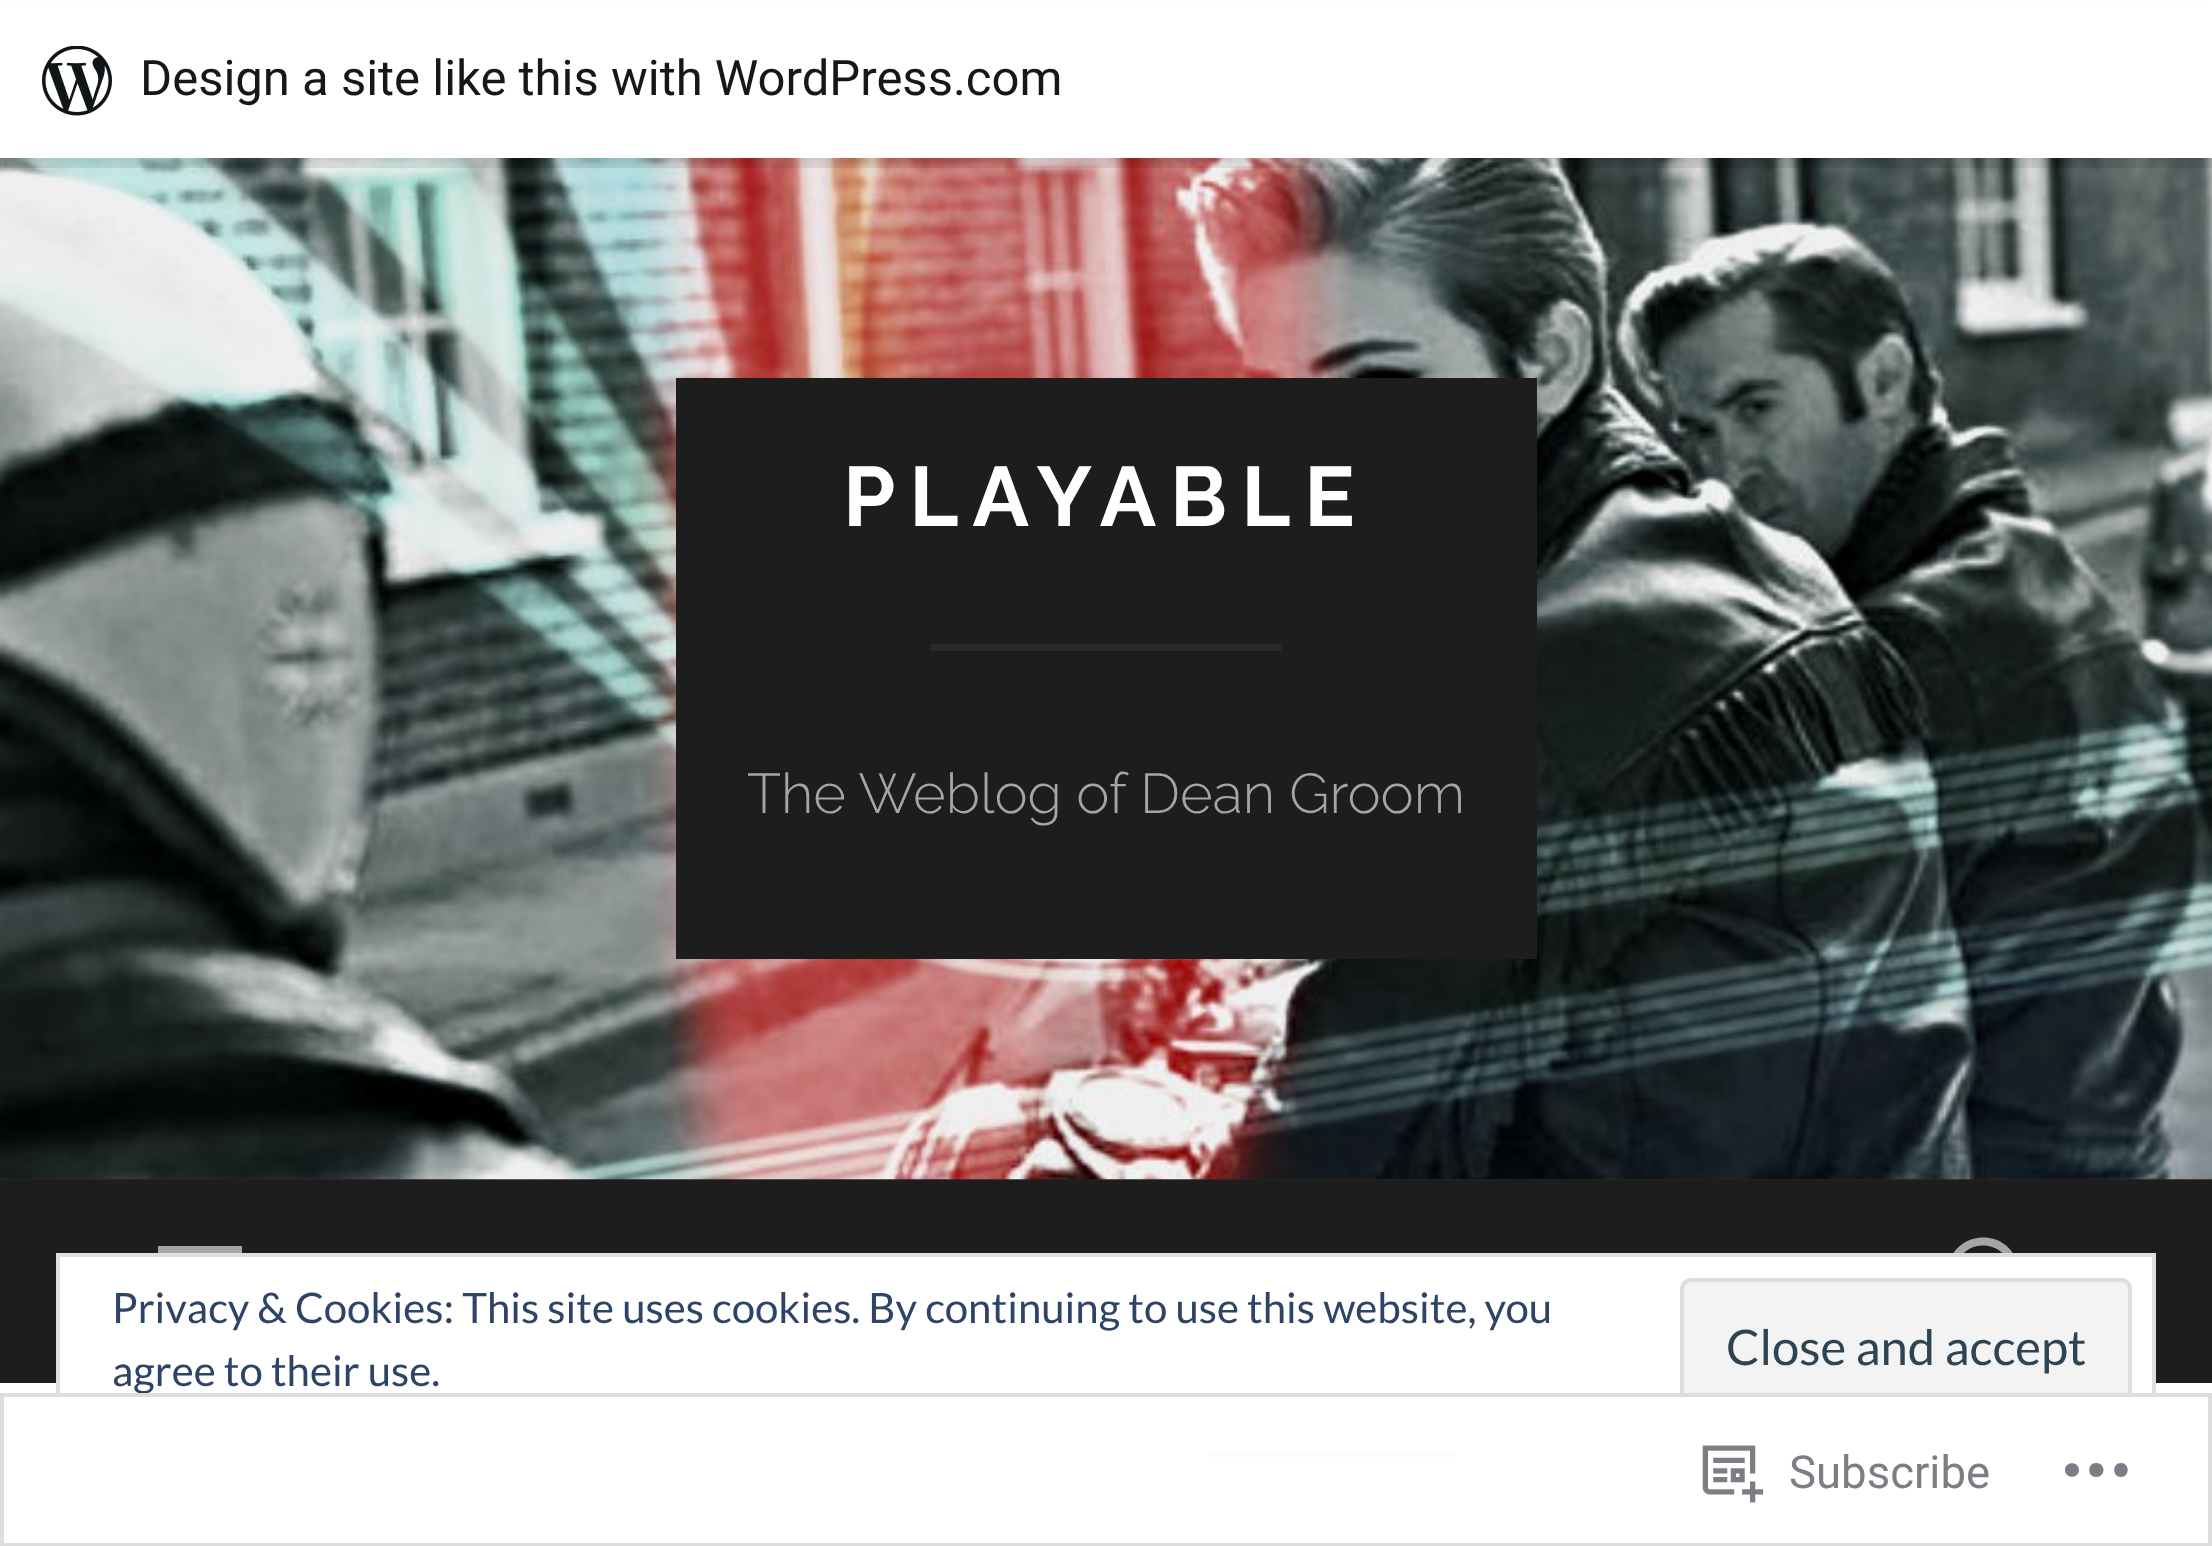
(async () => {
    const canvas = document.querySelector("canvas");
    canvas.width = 2212;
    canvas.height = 1546;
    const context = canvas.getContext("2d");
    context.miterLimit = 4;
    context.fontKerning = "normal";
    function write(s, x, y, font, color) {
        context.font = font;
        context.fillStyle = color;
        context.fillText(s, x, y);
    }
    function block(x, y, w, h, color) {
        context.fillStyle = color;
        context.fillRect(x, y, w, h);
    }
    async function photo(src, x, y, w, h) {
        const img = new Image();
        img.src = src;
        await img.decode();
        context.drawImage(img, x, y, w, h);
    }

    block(0, 0, 2212, 1546, "rgb(255, 255, 255)");
    block(0, 1179, 2212, 1, "rgb(38, 38, 38)");
    await photo("media/2.png", 0, 158, 2212, 1022);
    context.fillStyle = "rgba(0, 0, 0, 0.05)";
    context.filter = "blur(3.5px)";
    context.beginPath();
    context.rect(0, 4, 2212, 157);
    context.fill();
    context.filter = "none";
    context.fillStyle = "rgba(0, 0, 0, 0.08)";
    context.beginPath();
    context.moveTo(4, 158);
    context.lineTo(4, 168);
    context.lineTo(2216, 168);
    context.lineTo(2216, 11);
    context.lineTo(2212, 11);
    context.lineTo(2212, 158);
    context.closePath();
    context.fill();
    block(0, 1, 2212, 157, "rgb(255, 255, 255)");
    await photo("media/1.png", 42, 46, 70, 70);
    write("Design a site like this with WordPress.com", 140, 95, "49px Roboto", "rgb(23, 23, 23)");
    block(676, 378, 861, 581, "rgb(29, 29, 29)");
    context.letterSpacing = "14px";
    write("PLAYABLE", 843, 526, "bold 84px Raleway", "rgb(255, 255, 255)");
    block(931, 644, 350, 7, "rgb(43, 43, 43)");
    context.letterSpacing = "0px";
    write("The Weblog of Dean Groom", 747, 813, "300 56px Raleway", "rgb(165, 165, 165)");
    block(0, 1180, 2212, 203, "rgb(29, 29, 29)");
    context.fillStyle = "rgb(165, 165, 165)";
    context.beginPath();
    context.moveTo(158, 1309);
    context.lineTo(158, 1298);
    context.lineTo(242, 1298);
    context.lineTo(242, 1309);
    context.closePath();
    context.moveTo(158, 1246);
    context.lineTo(242, 1246);
    context.lineTo(242, 1256);
    context.lineTo(158, 1256);
    context.closePath();
    context.moveTo(158, 1283);
    context.lineTo(158, 1272);
    context.lineTo(242, 1272);
    context.lineTo(242, 1283);
    context.closePath();
    context.fill();
    context.beginPath();
    context.moveTo(2042, 1324);
    context.lineTo(2034, 1332);
    context.lineTo(2004, 1301);
    context.bezierCurveTo(1986, 1314, 1961, 1308, 1951, 1288);
    context.bezierCurveTo(1948, 1281, 1947, 1273, 1948, 1266);
    context.bezierCurveTo(1956, 1229, 2008, 1228, 2017, 1263);
    context.bezierCurveTo(2020, 1274, 2018, 1285, 2012, 1293);
    context.closePath();
    context.moveTo(1959, 1259);
    context.bezierCurveTo(1957, 1264, 1955, 1269, 1956, 1275);
    context.bezierCurveTo(1957, 1302, 1994, 1310, 2007, 1287);
    context.bezierCurveTo(2010, 1282, 2011, 1276, 2011, 1271);
    context.bezierCurveTo(2009, 1244, 1973, 1236, 1959, 1259);
    context.closePath();
    context.fill();
    block(60, 1257, 2092, 126, "rgb(255, 255, 255)");
    context.strokeStyle = "rgb(222, 222, 222)";
    context.lineWidth = 4;
    context.strokeRect(58, 1255, 2096, 234);
    write("Privacy & Cookies: This site uses cookies. By continuing to use this website, you", 112, 1323, "42px Lato", "rgb(46, 68, 103)");
    write("agree to their use.", 112, 1386, "42px Lato", "rgb(46, 68, 103)");
    context.fillStyle = "rgb(243, 243, 243)";
    context.beginPath();
    context.roundRect(1682, 1280, 448, 132, 9);
    context.fill();
    context.stroke();
    write("Close and accept", 1726, 1365, "49px Lato", "rgb(46, 68, 83)");
    block(1208, 1453, 248, 4, "rgb(46, 68, 103)");
    block(56, 1393, 2100, 98, "rgba(255, 255, 255, 0.98)");
    context.strokeStyle = "rgba(220, 220, 222, 0.98)";
    context.strokeRect(2, 1395, 2208, 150);
    await photo("media/3.png", 1702, 1445, 62, 58);
    write("Subscribe", 1789, 1488, "45.5px Roboto", "rgb(123, 127, 132)");
    context.fillStyle = "rgb(123, 127, 133)";
    context.beginPath();
    context.moveTo(2079, 1470);
    context.bezierCurveTo(2079, 1479, 2065, 1479, 2065, 1470);
    context.bezierCurveTo(2065, 1461, 2079, 1461, 2079, 1470);
    context.closePath();
    context.moveTo(2121, 1463);
    context.bezierCurveTo(2112, 1463, 2112, 1477, 2121, 1477);
    context.bezierCurveTo(2130, 1477, 2130, 1463, 2121, 1463);
    context.closePath();
    context.moveTo(2096, 1463);
    context.bezierCurveTo(2087, 1463, 2087, 1477, 2096, 1477);
    context.bezierCurveTo(2106, 1477, 2106, 1463, 2096, 1463);
    context.closePath();
    context.fill();
})();
